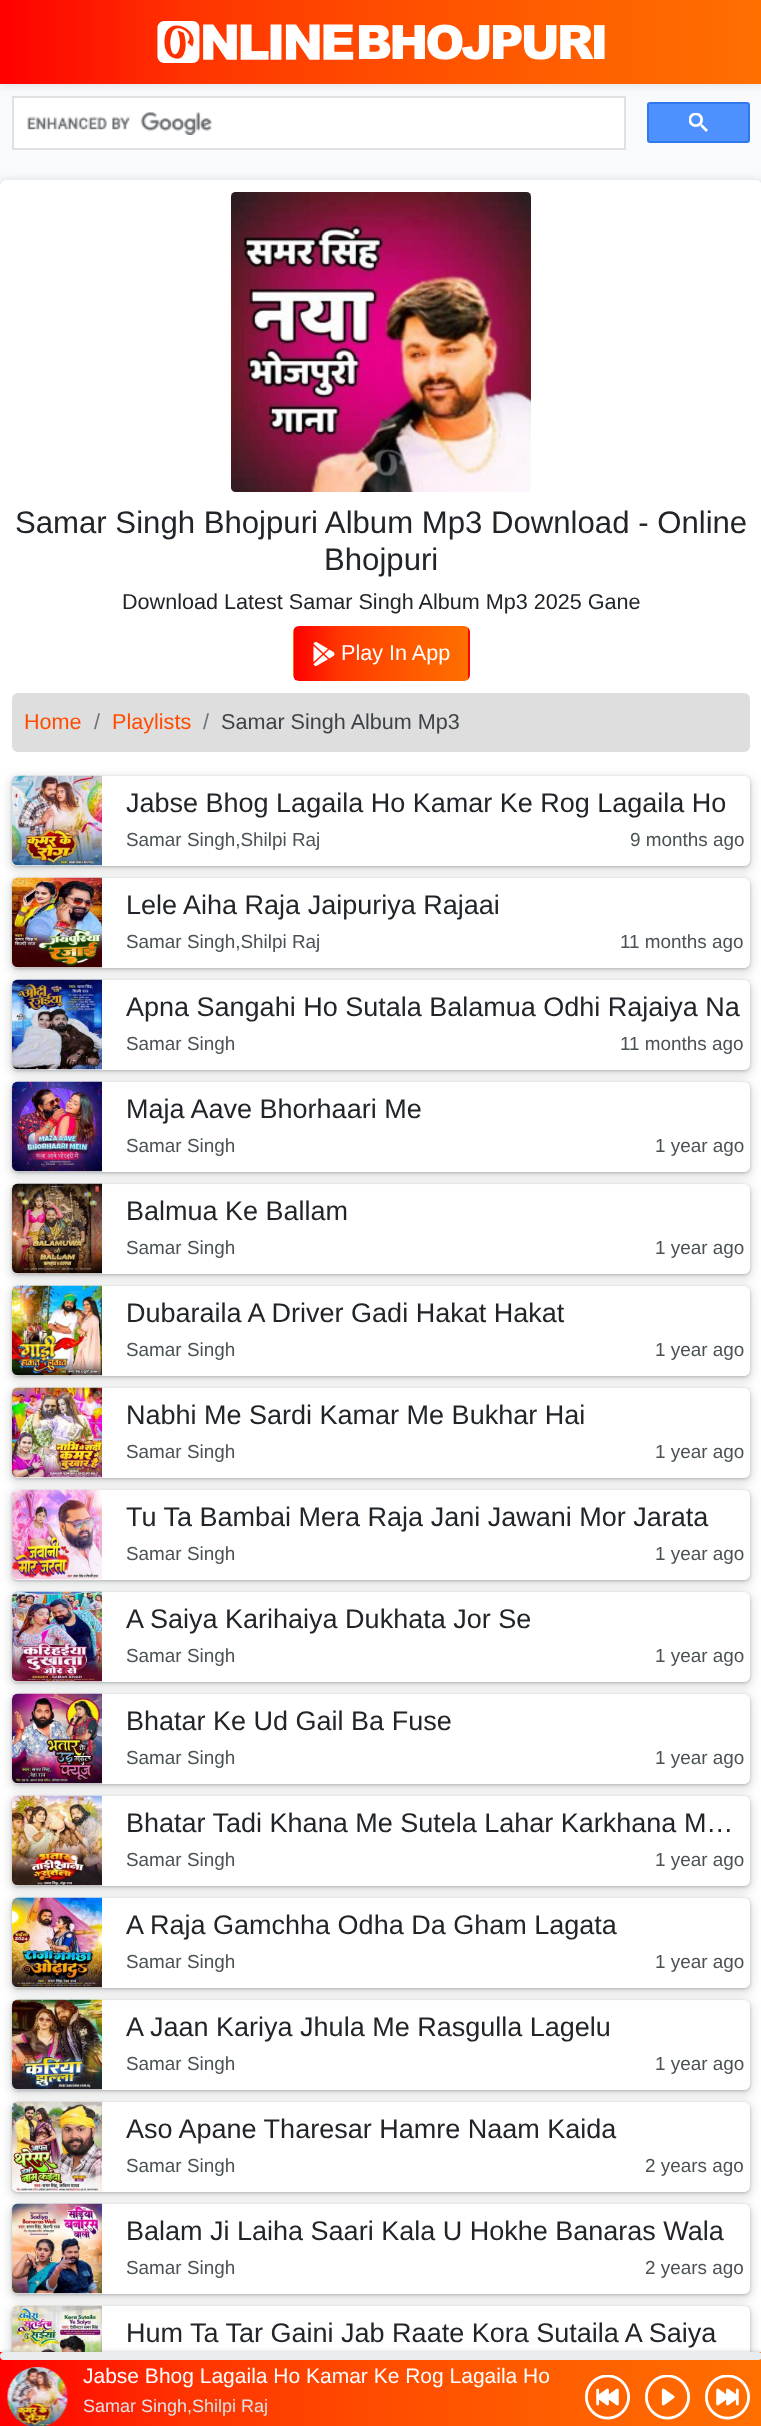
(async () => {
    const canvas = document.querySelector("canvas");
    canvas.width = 761;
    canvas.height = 2426;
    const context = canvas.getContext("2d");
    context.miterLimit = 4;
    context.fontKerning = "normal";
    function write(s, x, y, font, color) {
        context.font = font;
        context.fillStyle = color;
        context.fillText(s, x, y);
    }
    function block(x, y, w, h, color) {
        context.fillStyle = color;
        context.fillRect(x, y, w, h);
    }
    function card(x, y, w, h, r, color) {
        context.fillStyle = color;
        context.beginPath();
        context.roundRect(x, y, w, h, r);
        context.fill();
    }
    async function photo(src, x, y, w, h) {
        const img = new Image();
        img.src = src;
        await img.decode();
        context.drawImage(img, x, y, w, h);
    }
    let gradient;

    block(0, 0, 761, 2426, "rgb(248, 250, 252)");
    context.fillStyle = "rgb(255, 255, 255)";
    context.beginPath();
    context.rect(13, 97, 612, 52);
    context.fill();
    context.strokeStyle = "rgb(223, 225, 229)";
    context.lineWidth = 2;
    context.stroke();
    context.fillStyle = "rgba(0, 0, 0, 0.07)";
    context.filter = "blur(3px)";
    context.beginPath();
    context.rect(0, 3, 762, 84);
    context.fill();
    context.filter = "none";
    gradient = context.createLinearGradient(0, 42, 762, 42);
    gradient.addColorStop(0, "rgb(255, 0, 0)");
    gradient.addColorStop(0.25, "rgb(255, 52, 0)");
    gradient.addColorStop(0.5, "rgb(255, 76, 0)");
    gradient.addColorStop(0.75, "rgb(255, 95, 0)");
    gradient.addColorStop(1, "rgb(255, 111, 0)");
    context.fillStyle = gradient;
    context.fillRect(0, 0, 761, 84);
    await photo("media/1.png", 157, 21, 448, 42);
    await photo("media/2.png", 27, 112, 185, 23);
    context.fillStyle = "rgb(77, 144, 254)";
    context.beginPath();
    context.roundRect(648, 103, 101, 39, 2);
    context.fill();
    context.strokeStyle = "rgb(48, 121, 237)";
    context.stroke();
    await photo("media/3.png", 689, 113, 19, 19);
    context.fillStyle = "rgba(60, 64, 67, 0.15)";
    context.filter = "blur(4.5px)";
    context.beginPath();
    context.roundRect(-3, 180, 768, 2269, 9);
    context.fill();
    context.filter = "none";
    context.fillStyle = "rgba(60, 64, 67, 0.3)";
    context.filter = "blur(1.5px)";
    context.beginPath();
    context.roundRect(0, 182, 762, 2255, 6);
    context.fill();
    context.filter = "none";
    card(0, 180, 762, 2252, 6, "rgb(255, 255, 255)");
    await photo("media/4.png", 231, 192, 300, 300);
    write("Samar Singh Bhojpuri Album Mp3 Download - Online", 15, 533, "31.15px Liberation Sans", "rgb(33, 37, 41)");
    write("Bhojpuri", 324, 570, "31.15px Liberation Sans", "rgb(33, 37, 41)");
    write("Download Latest Samar Singh Album Mp3 2025 Gane", 122, 609, "21.6px Liberation Sans", "rgb(33, 37, 41)");
    context.save();
    context.beginPath();
    context.roundRect(293, 626, 177, 55, 6);
    context.clip();
    gradient = context.createLinearGradient(120, 653, 294, 653);
    gradient.addColorStop(0, "rgb(255, 0, 0)");
    gradient.addColorStop(0.25, "rgb(255, 52, 0)");
    gradient.addColorStop(0.5, "rgb(255, 76, 0)");
    gradient.addColorStop(0.75, "rgb(255, 95, 0)");
    gradient.addColorStop(1, "rgb(255, 111, 0)");
    context.fillStyle = gradient;
    context.fillRect(293, 626, 1, 55);
    gradient = context.createLinearGradient(294, 653, 468, 653);
    gradient.addColorStop(0, "rgb(255, 0, 0)");
    gradient.addColorStop(0.25, "rgb(255, 52, 0)");
    gradient.addColorStop(0.5, "rgb(255, 76, 0)");
    gradient.addColorStop(0.75, "rgb(255, 95, 0)");
    gradient.addColorStop(1, "rgb(255, 111, 0)");
    context.fillStyle = gradient;
    context.fillRect(294, 626, 174, 55);
    gradient = context.createLinearGradient(468, 653, 642, 653);
    gradient.addColorStop(0, "rgb(255, 0, 0)");
    gradient.addColorStop(0.25, "rgb(255, 52, 0)");
    gradient.addColorStop(0.5, "rgb(255, 76, 0)");
    gradient.addColorStop(0.75, "rgb(255, 95, 0)");
    gradient.addColorStop(1, "rgb(255, 111, 0)");
    context.fillStyle = gradient;
    context.fillRect(468, 626, 2, 55);
    context.restore();
    await photo("media/5.png", 313, 642, 22, 24);
    write("Play In App", 341, 660, "21.6px Liberation Sans", "rgb(255, 255, 255)");
    card(12, 693, 738, 59, 6, "rgb(222, 222, 222)");
    write("Home", 24, 729, "21.6px Liberation Sans", "rgb(255, 76, 0)");
    write("/", 94, 729, "21.6px Liberation Sans", "rgb(108, 117, 125)");
    write("Playlists", 112, 729, "21.6px Liberation Sans", "rgb(255, 76, 0)");
    write("/", 203, 729, "21.6px Liberation Sans", "rgb(108, 117, 125)");
    write("Samar Singh Album Mp3", 221, 729, "21.6px Liberation Sans", "rgb(62, 67, 71)");
    context.save();
    context.beginPath();
    context.moveTo(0, 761);
    context.lineTo(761, 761);
    context.lineTo(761, 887);
    context.lineTo(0, 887);
    context.closePath();
    context.moveTo(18, 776);
    context.lineTo(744, 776);
    context.bezierCurveTo(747.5, 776, 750, 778.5, 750, 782);
    context.lineTo(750, 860);
    context.bezierCurveTo(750, 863.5, 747.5, 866, 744, 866);
    context.lineTo(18, 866);
    context.bezierCurveTo(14.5, 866, 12, 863.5, 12, 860);
    context.lineTo(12, 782);
    context.bezierCurveTo(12, 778.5, 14.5, 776, 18, 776);
    context.closePath();
    context.clip("evenodd");
    context.fillStyle = "rgba(60, 64, 67, 0.15)";
    context.filter = "blur(4.5px)";
    context.beginPath();
    context.roundRect(9, 776, 744, 96, 9);
    context.fill();
    context.filter = "none";
    context.restore();
    context.save();
    context.beginPath();
    context.moveTo(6, 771);
    context.lineTo(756, 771);
    context.lineTo(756, 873);
    context.lineTo(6, 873);
    context.closePath();
    context.moveTo(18, 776);
    context.lineTo(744, 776);
    context.bezierCurveTo(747.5, 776, 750, 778.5, 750, 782);
    context.lineTo(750, 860);
    context.bezierCurveTo(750, 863.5, 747.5, 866, 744, 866);
    context.lineTo(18, 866);
    context.bezierCurveTo(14.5, 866, 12, 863.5, 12, 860);
    context.lineTo(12, 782);
    context.bezierCurveTo(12, 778.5, 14.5, 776, 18, 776);
    context.closePath();
    context.clip("evenodd");
    context.fillStyle = "rgba(60, 64, 67, 0.3)";
    context.filter = "blur(1.5px)";
    context.beginPath();
    context.roundRect(12, 777, 738, 90, 6);
    context.fill();
    context.filter = "none";
    context.restore();
    await photo("media/6.png", 12, 775, 90, 91);
    write("Jabse Bhog Lagaila Ho Kamar Ke Rog Lagaila Ho", 126, 812, "27px Liberation Sans", "rgb(33, 37, 41)");
    write("Samar Singh,Shilpi Raj", 126, 846, "18.9px Liberation Sans", "rgb(74, 82, 85)");
    write("9 months ago", 630, 846, "18.9px Liberation Sans", "rgb(74, 82, 85)");
    context.save();
    context.beginPath();
    context.moveTo(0, 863);
    context.lineTo(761, 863);
    context.lineTo(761, 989);
    context.lineTo(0, 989);
    context.closePath();
    context.moveTo(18, 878);
    context.lineTo(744, 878);
    context.bezierCurveTo(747.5, 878, 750, 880.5, 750, 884);
    context.lineTo(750, 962);
    context.bezierCurveTo(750, 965.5, 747.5, 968, 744, 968);
    context.lineTo(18, 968);
    context.bezierCurveTo(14.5, 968, 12, 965.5, 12, 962);
    context.lineTo(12, 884);
    context.bezierCurveTo(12, 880.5, 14.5, 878, 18, 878);
    context.closePath();
    context.clip("evenodd");
    context.fillStyle = "rgba(60, 64, 67, 0.15)";
    context.filter = "blur(4.5px)";
    context.beginPath();
    context.roundRect(9, 878, 744, 96, 9);
    context.fill();
    context.filter = "none";
    context.restore();
    context.save();
    context.beginPath();
    context.moveTo(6, 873);
    context.lineTo(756, 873);
    context.lineTo(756, 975);
    context.lineTo(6, 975);
    context.closePath();
    context.moveTo(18, 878);
    context.lineTo(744, 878);
    context.bezierCurveTo(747.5, 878, 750, 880.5, 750, 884);
    context.lineTo(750, 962);
    context.bezierCurveTo(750, 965.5, 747.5, 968, 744, 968);
    context.lineTo(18, 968);
    context.bezierCurveTo(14.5, 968, 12, 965.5, 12, 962);
    context.lineTo(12, 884);
    context.bezierCurveTo(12, 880.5, 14.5, 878, 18, 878);
    context.closePath();
    context.clip("evenodd");
    context.fillStyle = "rgba(60, 64, 67, 0.3)";
    context.filter = "blur(1.5px)";
    context.beginPath();
    context.roundRect(12, 879, 738, 90, 6);
    context.fill();
    context.filter = "none";
    context.restore();
    await photo("media/7.png", 12, 877, 90, 91);
    write("Lele Aiha Raja Jaipuriya Rajaai", 126, 914, "27px Liberation Sans", "rgb(33, 37, 41)");
    write("Samar Singh,Shilpi Raj", 126, 948, "18.9px Liberation Sans", "rgb(74, 82, 85)");
    write("11 months ago", 620, 948, "18.9px Liberation Sans", "rgb(74, 82, 85)");
    context.save();
    context.beginPath();
    context.moveTo(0, 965);
    context.lineTo(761, 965);
    context.lineTo(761, 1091);
    context.lineTo(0, 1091);
    context.closePath();
    context.moveTo(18, 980);
    context.lineTo(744, 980);
    context.bezierCurveTo(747.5, 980, 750, 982.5, 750, 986);
    context.lineTo(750, 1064);
    context.bezierCurveTo(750, 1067.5, 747.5, 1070, 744, 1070);
    context.lineTo(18, 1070);
    context.bezierCurveTo(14.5, 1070, 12, 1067.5, 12, 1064);
    context.lineTo(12, 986);
    context.bezierCurveTo(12, 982.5, 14.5, 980, 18, 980);
    context.closePath();
    context.clip("evenodd");
    context.fillStyle = "rgba(60, 64, 67, 0.15)";
    context.filter = "blur(4.5px)";
    context.beginPath();
    context.roundRect(9, 980, 744, 96, 9);
    context.fill();
    context.filter = "none";
    context.restore();
    context.save();
    context.beginPath();
    context.moveTo(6, 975);
    context.lineTo(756, 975);
    context.lineTo(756, 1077);
    context.lineTo(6, 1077);
    context.closePath();
    context.moveTo(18, 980);
    context.lineTo(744, 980);
    context.bezierCurveTo(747.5, 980, 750, 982.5, 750, 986);
    context.lineTo(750, 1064);
    context.bezierCurveTo(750, 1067.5, 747.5, 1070, 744, 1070);
    context.lineTo(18, 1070);
    context.bezierCurveTo(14.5, 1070, 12, 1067.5, 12, 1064);
    context.lineTo(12, 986);
    context.bezierCurveTo(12, 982.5, 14.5, 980, 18, 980);
    context.closePath();
    context.clip("evenodd");
    context.fillStyle = "rgba(60, 64, 67, 0.3)";
    context.filter = "blur(1.5px)";
    context.beginPath();
    context.roundRect(12, 981, 738, 90, 6);
    context.fill();
    context.filter = "none";
    context.restore();
    await photo("media/8.png", 12, 979, 90, 91);
    write("Apna Sangahi Ho Sutala Balamua Odhi Rajaiya Na", 126, 1016, "27px Liberation Sans", "rgb(33, 37, 41)");
    write("Samar Singh", 126, 1050, "18.9px Liberation Sans", "rgb(74, 82, 85)");
    write("11 months ago", 620, 1050, "18.9px Liberation Sans", "rgb(74, 82, 85)");
    context.save();
    context.beginPath();
    context.moveTo(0, 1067);
    context.lineTo(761, 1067);
    context.lineTo(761, 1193);
    context.lineTo(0, 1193);
    context.closePath();
    context.moveTo(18, 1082);
    context.lineTo(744, 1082);
    context.bezierCurveTo(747.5, 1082, 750, 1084.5, 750, 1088);
    context.lineTo(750, 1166);
    context.bezierCurveTo(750, 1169.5, 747.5, 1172, 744, 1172);
    context.lineTo(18, 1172);
    context.bezierCurveTo(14.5, 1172, 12, 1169.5, 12, 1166);
    context.lineTo(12, 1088);
    context.bezierCurveTo(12, 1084.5, 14.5, 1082, 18, 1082);
    context.closePath();
    context.clip("evenodd");
    context.fillStyle = "rgba(60, 64, 67, 0.15)";
    context.filter = "blur(4.5px)";
    context.beginPath();
    context.roundRect(9, 1082, 744, 96, 9);
    context.fill();
    context.filter = "none";
    context.restore();
    context.save();
    context.beginPath();
    context.moveTo(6, 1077);
    context.lineTo(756, 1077);
    context.lineTo(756, 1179);
    context.lineTo(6, 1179);
    context.closePath();
    context.moveTo(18, 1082);
    context.lineTo(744, 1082);
    context.bezierCurveTo(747.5, 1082, 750, 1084.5, 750, 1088);
    context.lineTo(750, 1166);
    context.bezierCurveTo(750, 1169.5, 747.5, 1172, 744, 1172);
    context.lineTo(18, 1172);
    context.bezierCurveTo(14.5, 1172, 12, 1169.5, 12, 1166);
    context.lineTo(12, 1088);
    context.bezierCurveTo(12, 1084.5, 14.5, 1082, 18, 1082);
    context.closePath();
    context.clip("evenodd");
    context.fillStyle = "rgba(60, 64, 67, 0.3)";
    context.filter = "blur(1.5px)";
    context.beginPath();
    context.roundRect(12, 1083, 738, 90, 6);
    context.fill();
    context.filter = "none";
    context.restore();
    await photo("media/9.png", 12, 1081, 90, 91);
    write("Maja Aave Bhorhaari Me", 126, 1118, "27px Liberation Sans", "rgb(33, 37, 41)");
    write("Samar Singh", 126, 1152, "18.9px Liberation Sans", "rgb(74, 82, 85)");
    write("1 year ago", 655, 1152, "18.9px Liberation Sans", "rgb(74, 82, 85)");
    context.save();
    context.beginPath();
    context.moveTo(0, 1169);
    context.lineTo(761, 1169);
    context.lineTo(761, 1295);
    context.lineTo(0, 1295);
    context.closePath();
    context.moveTo(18, 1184);
    context.lineTo(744, 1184);
    context.bezierCurveTo(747.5, 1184, 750, 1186.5, 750, 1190);
    context.lineTo(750, 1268);
    context.bezierCurveTo(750, 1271.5, 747.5, 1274, 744, 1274);
    context.lineTo(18, 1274);
    context.bezierCurveTo(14.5, 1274, 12, 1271.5, 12, 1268);
    context.lineTo(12, 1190);
    context.bezierCurveTo(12, 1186.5, 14.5, 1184, 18, 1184);
    context.closePath();
    context.clip("evenodd");
    context.fillStyle = "rgba(60, 64, 67, 0.15)";
    context.filter = "blur(4.5px)";
    context.beginPath();
    context.roundRect(9, 1184, 744, 96, 9);
    context.fill();
    context.filter = "none";
    context.restore();
    context.save();
    context.beginPath();
    context.moveTo(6, 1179);
    context.lineTo(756, 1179);
    context.lineTo(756, 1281);
    context.lineTo(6, 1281);
    context.closePath();
    context.moveTo(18, 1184);
    context.lineTo(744, 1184);
    context.bezierCurveTo(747.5, 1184, 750, 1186.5, 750, 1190);
    context.lineTo(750, 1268);
    context.bezierCurveTo(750, 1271.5, 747.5, 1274, 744, 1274);
    context.lineTo(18, 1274);
    context.bezierCurveTo(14.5, 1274, 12, 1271.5, 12, 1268);
    context.lineTo(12, 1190);
    context.bezierCurveTo(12, 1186.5, 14.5, 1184, 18, 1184);
    context.closePath();
    context.clip("evenodd");
    context.fillStyle = "rgba(60, 64, 67, 0.3)";
    context.filter = "blur(1.5px)";
    context.beginPath();
    context.roundRect(12, 1185, 738, 90, 6);
    context.fill();
    context.filter = "none";
    context.restore();
    await photo("media/10.png", 12, 1183, 90, 91);
    write("Balmua Ke Ballam", 126, 1220, "27px Liberation Sans", "rgb(33, 37, 41)");
    write("Samar Singh", 126, 1254, "18.9px Liberation Sans", "rgb(74, 82, 85)");
    write("1 year ago", 655, 1254, "18.9px Liberation Sans", "rgb(74, 82, 85)");
    context.save();
    context.beginPath();
    context.moveTo(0, 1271);
    context.lineTo(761, 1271);
    context.lineTo(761, 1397);
    context.lineTo(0, 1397);
    context.closePath();
    context.moveTo(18, 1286);
    context.lineTo(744, 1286);
    context.bezierCurveTo(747.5, 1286, 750, 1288.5, 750, 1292);
    context.lineTo(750, 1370);
    context.bezierCurveTo(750, 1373.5, 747.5, 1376, 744, 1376);
    context.lineTo(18, 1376);
    context.bezierCurveTo(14.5, 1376, 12, 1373.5, 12, 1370);
    context.lineTo(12, 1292);
    context.bezierCurveTo(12, 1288.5, 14.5, 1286, 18, 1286);
    context.closePath();
    context.clip("evenodd");
    context.fillStyle = "rgba(60, 64, 67, 0.15)";
    context.filter = "blur(4.5px)";
    context.beginPath();
    context.roundRect(9, 1286, 744, 96, 9);
    context.fill();
    context.filter = "none";
    context.restore();
    context.save();
    context.beginPath();
    context.moveTo(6, 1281);
    context.lineTo(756, 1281);
    context.lineTo(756, 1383);
    context.lineTo(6, 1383);
    context.closePath();
    context.moveTo(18, 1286);
    context.lineTo(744, 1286);
    context.bezierCurveTo(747.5, 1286, 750, 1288.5, 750, 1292);
    context.lineTo(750, 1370);
    context.bezierCurveTo(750, 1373.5, 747.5, 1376, 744, 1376);
    context.lineTo(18, 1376);
    context.bezierCurveTo(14.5, 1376, 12, 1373.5, 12, 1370);
    context.lineTo(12, 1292);
    context.bezierCurveTo(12, 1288.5, 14.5, 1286, 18, 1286);
    context.closePath();
    context.clip("evenodd");
    context.fillStyle = "rgba(60, 64, 67, 0.3)";
    context.filter = "blur(1.5px)";
    context.beginPath();
    context.roundRect(12, 1287, 738, 90, 6);
    context.fill();
    context.filter = "none";
    context.restore();
    await photo("media/11.png", 12, 1285, 90, 91);
    write("Dubaraila A Driver Gadi Hakat Hakat", 126, 1322, "27px Liberation Sans", "rgb(33, 37, 41)");
    write("Samar Singh", 126, 1356, "18.9px Liberation Sans", "rgb(74, 82, 85)");
    write("1 year ago", 655, 1356, "18.9px Liberation Sans", "rgb(74, 82, 85)");
    context.save();
    context.beginPath();
    context.moveTo(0, 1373);
    context.lineTo(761, 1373);
    context.lineTo(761, 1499);
    context.lineTo(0, 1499);
    context.closePath();
    context.moveTo(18, 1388);
    context.lineTo(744, 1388);
    context.bezierCurveTo(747.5, 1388, 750, 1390.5, 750, 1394);
    context.lineTo(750, 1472);
    context.bezierCurveTo(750, 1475.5, 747.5, 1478, 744, 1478);
    context.lineTo(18, 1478);
    context.bezierCurveTo(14.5, 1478, 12, 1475.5, 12, 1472);
    context.lineTo(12, 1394);
    context.bezierCurveTo(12, 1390.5, 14.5, 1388, 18, 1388);
    context.closePath();
    context.clip("evenodd");
    context.fillStyle = "rgba(60, 64, 67, 0.15)";
    context.filter = "blur(4.5px)";
    context.beginPath();
    context.roundRect(9, 1388, 744, 96, 9);
    context.fill();
    context.filter = "none";
    context.restore();
    context.save();
    context.beginPath();
    context.moveTo(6, 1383);
    context.lineTo(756, 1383);
    context.lineTo(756, 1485);
    context.lineTo(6, 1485);
    context.closePath();
    context.moveTo(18, 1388);
    context.lineTo(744, 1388);
    context.bezierCurveTo(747.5, 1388, 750, 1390.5, 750, 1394);
    context.lineTo(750, 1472);
    context.bezierCurveTo(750, 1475.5, 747.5, 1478, 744, 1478);
    context.lineTo(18, 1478);
    context.bezierCurveTo(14.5, 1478, 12, 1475.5, 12, 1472);
    context.lineTo(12, 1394);
    context.bezierCurveTo(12, 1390.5, 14.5, 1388, 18, 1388);
    context.closePath();
    context.clip("evenodd");
    context.fillStyle = "rgba(60, 64, 67, 0.3)";
    context.filter = "blur(1.5px)";
    context.beginPath();
    context.roundRect(12, 1389, 738, 90, 6);
    context.fill();
    context.filter = "none";
    context.restore();
    await photo("media/12.png", 12, 1387, 90, 91);
    write("Nabhi Me Sardi Kamar Me Bukhar Hai", 126, 1424, "27px Liberation Sans", "rgb(33, 37, 41)");
    write("Samar Singh", 126, 1458, "18.9px Liberation Sans", "rgb(74, 82, 85)");
    write("1 year ago", 655, 1458, "18.9px Liberation Sans", "rgb(74, 82, 85)");
    context.save();
    context.beginPath();
    context.moveTo(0, 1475);
    context.lineTo(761, 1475);
    context.lineTo(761, 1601);
    context.lineTo(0, 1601);
    context.closePath();
    context.moveTo(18, 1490);
    context.lineTo(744, 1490);
    context.bezierCurveTo(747.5, 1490, 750, 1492.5, 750, 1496);
    context.lineTo(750, 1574);
    context.bezierCurveTo(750, 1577.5, 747.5, 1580, 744, 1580);
    context.lineTo(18, 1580);
    context.bezierCurveTo(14.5, 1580, 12, 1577.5, 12, 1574);
    context.lineTo(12, 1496);
    context.bezierCurveTo(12, 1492.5, 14.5, 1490, 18, 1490);
    context.closePath();
    context.clip("evenodd");
    context.fillStyle = "rgba(60, 64, 67, 0.15)";
    context.filter = "blur(4.5px)";
    context.beginPath();
    context.roundRect(9, 1490, 744, 96, 9);
    context.fill();
    context.filter = "none";
    context.restore();
    context.save();
    context.beginPath();
    context.moveTo(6, 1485);
    context.lineTo(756, 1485);
    context.lineTo(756, 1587);
    context.lineTo(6, 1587);
    context.closePath();
    context.moveTo(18, 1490);
    context.lineTo(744, 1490);
    context.bezierCurveTo(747.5, 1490, 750, 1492.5, 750, 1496);
    context.lineTo(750, 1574);
    context.bezierCurveTo(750, 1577.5, 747.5, 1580, 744, 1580);
    context.lineTo(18, 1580);
    context.bezierCurveTo(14.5, 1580, 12, 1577.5, 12, 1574);
    context.lineTo(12, 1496);
    context.bezierCurveTo(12, 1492.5, 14.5, 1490, 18, 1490);
    context.closePath();
    context.clip("evenodd");
    context.fillStyle = "rgba(60, 64, 67, 0.3)";
    context.filter = "blur(1.5px)";
    context.beginPath();
    context.roundRect(12, 1491, 738, 90, 6);
    context.fill();
    context.filter = "none";
    context.restore();
    await photo("media/13.png", 12, 1489, 90, 91);
    write("Tu Ta Bambai Mera Raja Jani Jawani Mor Jarata", 126, 1526, "27px Liberation Sans", "rgb(33, 37, 41)");
    write("Samar Singh", 126, 1560, "18.9px Liberation Sans", "rgb(74, 82, 85)");
    write("1 year ago", 655, 1560, "18.9px Liberation Sans", "rgb(74, 82, 85)");
    context.save();
    context.beginPath();
    context.moveTo(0, 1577);
    context.lineTo(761, 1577);
    context.lineTo(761, 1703);
    context.lineTo(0, 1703);
    context.closePath();
    context.moveTo(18, 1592);
    context.lineTo(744, 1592);
    context.bezierCurveTo(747.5, 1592, 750, 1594.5, 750, 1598);
    context.lineTo(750, 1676);
    context.bezierCurveTo(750, 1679.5, 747.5, 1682, 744, 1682);
    context.lineTo(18, 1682);
    context.bezierCurveTo(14.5, 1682, 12, 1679.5, 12, 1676);
    context.lineTo(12, 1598);
    context.bezierCurveTo(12, 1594.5, 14.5, 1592, 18, 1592);
    context.closePath();
    context.clip("evenodd");
    context.fillStyle = "rgba(60, 64, 67, 0.15)";
    context.filter = "blur(4.5px)";
    context.beginPath();
    context.roundRect(9, 1592, 744, 96, 9);
    context.fill();
    context.filter = "none";
    context.restore();
    context.save();
    context.beginPath();
    context.moveTo(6, 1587);
    context.lineTo(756, 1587);
    context.lineTo(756, 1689);
    context.lineTo(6, 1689);
    context.closePath();
    context.moveTo(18, 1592);
    context.lineTo(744, 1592);
    context.bezierCurveTo(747.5, 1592, 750, 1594.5, 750, 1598);
    context.lineTo(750, 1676);
    context.bezierCurveTo(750, 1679.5, 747.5, 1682, 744, 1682);
    context.lineTo(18, 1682);
    context.bezierCurveTo(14.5, 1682, 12, 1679.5, 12, 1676);
    context.lineTo(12, 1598);
    context.bezierCurveTo(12, 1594.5, 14.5, 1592, 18, 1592);
    context.closePath();
    context.clip("evenodd");
    context.fillStyle = "rgba(60, 64, 67, 0.3)";
    context.filter = "blur(1.5px)";
    context.beginPath();
    context.roundRect(12, 1593, 738, 90, 6);
    context.fill();
    context.filter = "none";
    context.restore();
    await photo("media/14.png", 12, 1591, 90, 91);
    write("A Saiya Karihaiya Dukhata Jor Se", 126, 1628, "27px Liberation Sans", "rgb(33, 37, 41)");
    write("Samar Singh", 126, 1662, "18.9px Liberation Sans", "rgb(74, 82, 85)");
    write("1 year ago", 655, 1662, "18.9px Liberation Sans", "rgb(74, 82, 85)");
    context.save();
    context.beginPath();
    context.moveTo(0, 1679);
    context.lineTo(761, 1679);
    context.lineTo(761, 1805);
    context.lineTo(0, 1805);
    context.closePath();
    context.moveTo(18, 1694);
    context.lineTo(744, 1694);
    context.bezierCurveTo(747.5, 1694, 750, 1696.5, 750, 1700);
    context.lineTo(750, 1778);
    context.bezierCurveTo(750, 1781.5, 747.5, 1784, 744, 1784);
    context.lineTo(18, 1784);
    context.bezierCurveTo(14.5, 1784, 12, 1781.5, 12, 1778);
    context.lineTo(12, 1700);
    context.bezierCurveTo(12, 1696.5, 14.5, 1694, 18, 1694);
    context.closePath();
    context.clip("evenodd");
    context.fillStyle = "rgba(60, 64, 67, 0.15)";
    context.filter = "blur(4.5px)";
    context.beginPath();
    context.roundRect(9, 1694, 744, 96, 9);
    context.fill();
    context.filter = "none";
    context.restore();
    context.save();
    context.beginPath();
    context.moveTo(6, 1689);
    context.lineTo(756, 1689);
    context.lineTo(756, 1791);
    context.lineTo(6, 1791);
    context.closePath();
    context.moveTo(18, 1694);
    context.lineTo(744, 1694);
    context.bezierCurveTo(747.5, 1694, 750, 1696.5, 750, 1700);
    context.lineTo(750, 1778);
    context.bezierCurveTo(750, 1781.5, 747.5, 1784, 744, 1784);
    context.lineTo(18, 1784);
    context.bezierCurveTo(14.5, 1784, 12, 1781.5, 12, 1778);
    context.lineTo(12, 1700);
    context.bezierCurveTo(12, 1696.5, 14.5, 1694, 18, 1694);
    context.closePath();
    context.clip("evenodd");
    context.fillStyle = "rgba(60, 64, 67, 0.3)";
    context.filter = "blur(1.5px)";
    context.beginPath();
    context.roundRect(12, 1695, 738, 90, 6);
    context.fill();
    context.filter = "none";
    context.restore();
    await photo("media/15.png", 12, 1693, 90, 91);
    write("Bhatar Ke Ud Gail Ba Fuse", 126, 1730, "27px Liberation Sans", "rgb(33, 37, 41)");
    write("Samar Singh", 126, 1764, "18.9px Liberation Sans", "rgb(74, 82, 85)");
    write("1 year ago", 655, 1764, "18.9px Liberation Sans", "rgb(74, 82, 85)");
    context.save();
    context.beginPath();
    context.moveTo(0, 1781);
    context.lineTo(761, 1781);
    context.lineTo(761, 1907);
    context.lineTo(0, 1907);
    context.closePath();
    context.moveTo(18, 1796);
    context.lineTo(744, 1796);
    context.bezierCurveTo(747.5, 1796, 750, 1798.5, 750, 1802);
    context.lineTo(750, 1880);
    context.bezierCurveTo(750, 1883.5, 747.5, 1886, 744, 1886);
    context.lineTo(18, 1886);
    context.bezierCurveTo(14.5, 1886, 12, 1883.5, 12, 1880);
    context.lineTo(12, 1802);
    context.bezierCurveTo(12, 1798.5, 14.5, 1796, 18, 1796);
    context.closePath();
    context.clip("evenodd");
    context.fillStyle = "rgba(60, 64, 67, 0.15)";
    context.filter = "blur(4.5px)";
    context.beginPath();
    context.roundRect(9, 1796, 744, 96, 9);
    context.fill();
    context.filter = "none";
    context.restore();
    context.save();
    context.beginPath();
    context.moveTo(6, 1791);
    context.lineTo(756, 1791);
    context.lineTo(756, 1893);
    context.lineTo(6, 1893);
    context.closePath();
    context.moveTo(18, 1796);
    context.lineTo(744, 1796);
    context.bezierCurveTo(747.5, 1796, 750, 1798.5, 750, 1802);
    context.lineTo(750, 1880);
    context.bezierCurveTo(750, 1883.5, 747.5, 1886, 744, 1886);
    context.lineTo(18, 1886);
    context.bezierCurveTo(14.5, 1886, 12, 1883.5, 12, 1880);
    context.lineTo(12, 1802);
    context.bezierCurveTo(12, 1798.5, 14.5, 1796, 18, 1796);
    context.closePath();
    context.clip("evenodd");
    context.fillStyle = "rgba(60, 64, 67, 0.3)";
    context.filter = "blur(1.5px)";
    context.beginPath();
    context.roundRect(12, 1797, 738, 90, 6);
    context.fill();
    context.filter = "none";
    context.restore();
    await photo("media/16.png", 12, 1795, 90, 91);
    write("Bhatar Tadi Khana Me Sutela Lahar Karkhana M…", 126, 1832, "27px Liberation Sans", "rgb(33, 37, 41)");
    write("Samar Singh", 126, 1866, "18.9px Liberation Sans", "rgb(74, 82, 85)");
    write("1 year ago", 655, 1866, "18.9px Liberation Sans", "rgb(74, 82, 85)");
    context.save();
    context.beginPath();
    context.moveTo(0, 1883);
    context.lineTo(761, 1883);
    context.lineTo(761, 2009);
    context.lineTo(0, 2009);
    context.closePath();
    context.moveTo(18, 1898);
    context.lineTo(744, 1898);
    context.bezierCurveTo(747.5, 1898, 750, 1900.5, 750, 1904);
    context.lineTo(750, 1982);
    context.bezierCurveTo(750, 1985.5, 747.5, 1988, 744, 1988);
    context.lineTo(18, 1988);
    context.bezierCurveTo(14.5, 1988, 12, 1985.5, 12, 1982);
    context.lineTo(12, 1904);
    context.bezierCurveTo(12, 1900.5, 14.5, 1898, 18, 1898);
    context.closePath();
    context.clip("evenodd");
    context.fillStyle = "rgba(60, 64, 67, 0.15)";
    context.filter = "blur(4.5px)";
    context.beginPath();
    context.roundRect(9, 1898, 744, 96, 9);
    context.fill();
    context.filter = "none";
    context.restore();
    context.save();
    context.beginPath();
    context.moveTo(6, 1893);
    context.lineTo(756, 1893);
    context.lineTo(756, 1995);
    context.lineTo(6, 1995);
    context.closePath();
    context.moveTo(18, 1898);
    context.lineTo(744, 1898);
    context.bezierCurveTo(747.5, 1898, 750, 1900.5, 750, 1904);
    context.lineTo(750, 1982);
    context.bezierCurveTo(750, 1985.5, 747.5, 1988, 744, 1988);
    context.lineTo(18, 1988);
    context.bezierCurveTo(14.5, 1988, 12, 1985.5, 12, 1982);
    context.lineTo(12, 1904);
    context.bezierCurveTo(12, 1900.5, 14.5, 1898, 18, 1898);
    context.closePath();
    context.clip("evenodd");
    context.fillStyle = "rgba(60, 64, 67, 0.3)";
    context.filter = "blur(1.5px)";
    context.beginPath();
    context.roundRect(12, 1899, 738, 90, 6);
    context.fill();
    context.filter = "none";
    context.restore();
    await photo("media/17.png", 12, 1897, 90, 91);
    write("A Raja Gamchha Odha Da Gham Lagata", 126, 1934, "27px Liberation Sans", "rgb(33, 37, 41)");
    write("Samar Singh", 126, 1968, "18.9px Liberation Sans", "rgb(74, 82, 85)");
    write("1 year ago", 655, 1968, "18.9px Liberation Sans", "rgb(74, 82, 85)");
    context.save();
    context.beginPath();
    context.moveTo(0, 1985);
    context.lineTo(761, 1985);
    context.lineTo(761, 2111);
    context.lineTo(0, 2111);
    context.closePath();
    context.moveTo(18, 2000);
    context.lineTo(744, 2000);
    context.bezierCurveTo(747.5, 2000, 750, 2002.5, 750, 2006);
    context.lineTo(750, 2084);
    context.bezierCurveTo(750, 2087.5, 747.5, 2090, 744, 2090);
    context.lineTo(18, 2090);
    context.bezierCurveTo(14.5, 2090, 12, 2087.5, 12, 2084);
    context.lineTo(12, 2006);
    context.bezierCurveTo(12, 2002.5, 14.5, 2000, 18, 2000);
    context.closePath();
    context.clip("evenodd");
    context.fillStyle = "rgba(60, 64, 67, 0.15)";
    context.filter = "blur(4.5px)";
    context.beginPath();
    context.roundRect(9, 2000, 744, 96, 9);
    context.fill();
    context.filter = "none";
    context.restore();
    context.save();
    context.beginPath();
    context.moveTo(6, 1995);
    context.lineTo(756, 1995);
    context.lineTo(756, 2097);
    context.lineTo(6, 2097);
    context.closePath();
    context.moveTo(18, 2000);
    context.lineTo(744, 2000);
    context.bezierCurveTo(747.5, 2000, 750, 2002.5, 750, 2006);
    context.lineTo(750, 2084);
    context.bezierCurveTo(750, 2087.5, 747.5, 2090, 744, 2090);
    context.lineTo(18, 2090);
    context.bezierCurveTo(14.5, 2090, 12, 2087.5, 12, 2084);
    context.lineTo(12, 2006);
    context.bezierCurveTo(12, 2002.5, 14.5, 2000, 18, 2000);
    context.closePath();
    context.clip("evenodd");
    context.fillStyle = "rgba(60, 64, 67, 0.3)";
    context.filter = "blur(1.5px)";
    context.beginPath();
    context.roundRect(12, 2001, 738, 90, 6);
    context.fill();
    context.filter = "none";
    context.restore();
    await photo("media/18.png", 12, 1999, 90, 91);
    write("A Jaan Kariya Jhula Me Rasgulla Lagelu", 126, 2036, "27px Liberation Sans", "rgb(33, 37, 41)");
    write("Samar Singh", 126, 2070, "18.9px Liberation Sans", "rgb(74, 82, 85)");
    write("1 year ago", 655, 2070, "18.9px Liberation Sans", "rgb(74, 82, 85)");
    context.save();
    context.beginPath();
    context.moveTo(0, 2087);
    context.lineTo(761, 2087);
    context.lineTo(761, 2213);
    context.lineTo(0, 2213);
    context.closePath();
    context.moveTo(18, 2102);
    context.lineTo(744, 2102);
    context.bezierCurveTo(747.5, 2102, 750, 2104.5, 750, 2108);
    context.lineTo(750, 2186);
    context.bezierCurveTo(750, 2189.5, 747.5, 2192, 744, 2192);
    context.lineTo(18, 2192);
    context.bezierCurveTo(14.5, 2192, 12, 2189.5, 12, 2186);
    context.lineTo(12, 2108);
    context.bezierCurveTo(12, 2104.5, 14.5, 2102, 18, 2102);
    context.closePath();
    context.clip("evenodd");
    context.fillStyle = "rgba(60, 64, 67, 0.15)";
    context.filter = "blur(4.5px)";
    context.beginPath();
    context.roundRect(9, 2102, 744, 96, 9);
    context.fill();
    context.filter = "none";
    context.restore();
    context.save();
    context.beginPath();
    context.moveTo(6, 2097);
    context.lineTo(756, 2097);
    context.lineTo(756, 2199);
    context.lineTo(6, 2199);
    context.closePath();
    context.moveTo(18, 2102);
    context.lineTo(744, 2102);
    context.bezierCurveTo(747.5, 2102, 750, 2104.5, 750, 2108);
    context.lineTo(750, 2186);
    context.bezierCurveTo(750, 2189.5, 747.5, 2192, 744, 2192);
    context.lineTo(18, 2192);
    context.bezierCurveTo(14.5, 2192, 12, 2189.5, 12, 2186);
    context.lineTo(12, 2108);
    context.bezierCurveTo(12, 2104.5, 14.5, 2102, 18, 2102);
    context.closePath();
    context.clip("evenodd");
    context.fillStyle = "rgba(60, 64, 67, 0.3)";
    context.filter = "blur(1.5px)";
    context.beginPath();
    context.roundRect(12, 2103, 738, 90, 6);
    context.fill();
    context.filter = "none";
    context.restore();
    await photo("media/19.png", 12, 2101, 90, 91);
    write("Aso Apane Tharesar Hamre Naam Kaida", 126, 2138, "27px Liberation Sans", "rgb(33, 37, 41)");
    write("Samar Singh", 126, 2172, "18.9px Liberation Sans", "rgb(74, 82, 85)");
    write("2 years ago", 645, 2172, "18.9px Liberation Sans", "rgb(74, 82, 85)");
    context.save();
    context.beginPath();
    context.moveTo(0, 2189);
    context.lineTo(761, 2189);
    context.lineTo(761, 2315);
    context.lineTo(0, 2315);
    context.closePath();
    context.moveTo(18, 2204);
    context.lineTo(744, 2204);
    context.bezierCurveTo(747.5, 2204, 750, 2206.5, 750, 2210);
    context.lineTo(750, 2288);
    context.bezierCurveTo(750, 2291.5, 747.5, 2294, 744, 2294);
    context.lineTo(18, 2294);
    context.bezierCurveTo(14.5, 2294, 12, 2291.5, 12, 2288);
    context.lineTo(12, 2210);
    context.bezierCurveTo(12, 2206.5, 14.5, 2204, 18, 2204);
    context.closePath();
    context.clip("evenodd");
    context.fillStyle = "rgba(60, 64, 67, 0.15)";
    context.filter = "blur(4.5px)";
    context.beginPath();
    context.roundRect(9, 2204, 744, 96, 9);
    context.fill();
    context.filter = "none";
    context.restore();
    context.save();
    context.beginPath();
    context.moveTo(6, 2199);
    context.lineTo(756, 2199);
    context.lineTo(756, 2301);
    context.lineTo(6, 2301);
    context.closePath();
    context.moveTo(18, 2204);
    context.lineTo(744, 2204);
    context.bezierCurveTo(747.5, 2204, 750, 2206.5, 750, 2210);
    context.lineTo(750, 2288);
    context.bezierCurveTo(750, 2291.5, 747.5, 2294, 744, 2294);
    context.lineTo(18, 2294);
    context.bezierCurveTo(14.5, 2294, 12, 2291.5, 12, 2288);
    context.lineTo(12, 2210);
    context.bezierCurveTo(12, 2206.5, 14.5, 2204, 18, 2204);
    context.closePath();
    context.clip("evenodd");
    context.fillStyle = "rgba(60, 64, 67, 0.3)";
    context.filter = "blur(1.5px)";
    context.beginPath();
    context.roundRect(12, 2205, 738, 90, 6);
    context.fill();
    context.filter = "none";
    context.restore();
    await photo("media/20.png", 12, 2203, 90, 91);
    write("Balam Ji Laiha Saari Kala U Hokhe Banaras Wala", 126, 2240, "27px Liberation Sans", "rgb(33, 37, 41)");
    write("Samar Singh", 126, 2274, "18.9px Liberation Sans", "rgb(74, 82, 85)");
    write("2 years ago", 645, 2274, "18.9px Liberation Sans", "rgb(74, 82, 85)");
    context.save();
    context.beginPath();
    context.moveTo(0, 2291);
    context.lineTo(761, 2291);
    context.lineTo(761, 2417);
    context.lineTo(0, 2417);
    context.closePath();
    context.moveTo(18, 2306);
    context.lineTo(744, 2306);
    context.bezierCurveTo(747.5, 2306, 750, 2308.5, 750, 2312);
    context.lineTo(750, 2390);
    context.bezierCurveTo(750, 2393.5, 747.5, 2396, 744, 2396);
    context.lineTo(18, 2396);
    context.bezierCurveTo(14.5, 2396, 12, 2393.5, 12, 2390);
    context.lineTo(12, 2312);
    context.bezierCurveTo(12, 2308.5, 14.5, 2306, 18, 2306);
    context.closePath();
    context.clip("evenodd");
    context.fillStyle = "rgba(60, 64, 67, 0.15)";
    context.filter = "blur(4.5px)";
    context.beginPath();
    context.roundRect(9, 2306, 744, 96, 9);
    context.fill();
    context.filter = "none";
    context.restore();
    context.save();
    context.beginPath();
    context.moveTo(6, 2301);
    context.lineTo(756, 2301);
    context.lineTo(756, 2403);
    context.lineTo(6, 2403);
    context.closePath();
    context.moveTo(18, 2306);
    context.lineTo(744, 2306);
    context.bezierCurveTo(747.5, 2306, 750, 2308.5, 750, 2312);
    context.lineTo(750, 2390);
    context.bezierCurveTo(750, 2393.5, 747.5, 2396, 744, 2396);
    context.lineTo(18, 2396);
    context.bezierCurveTo(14.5, 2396, 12, 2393.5, 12, 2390);
    context.lineTo(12, 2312);
    context.bezierCurveTo(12, 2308.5, 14.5, 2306, 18, 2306);
    context.closePath();
    context.clip("evenodd");
    context.fillStyle = "rgba(60, 64, 67, 0.3)";
    context.filter = "blur(1.5px)";
    context.beginPath();
    context.roundRect(12, 2307, 738, 90, 6);
    context.fill();
    context.filter = "none";
    context.restore();
    await photo("media/21.png", 12, 2305, 90, 47);
    write("Hum Ta Tar Gaini Jab Raate Kora Sutaila A Saiya", 126, 2342, "27px Liberation Sans", "rgb(33, 37, 41)");
    context.fillStyle = "rgba(0, 0, 0, 0.2)";
    context.filter = "blur(2px)";
    context.beginPath();
    context.rect(0, 2352, 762, 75);
    context.fill();
    context.filter = "none";
    gradient = context.createLinearGradient(0, 2390, 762, 2390);
    gradient.addColorStop(0, "rgb(255, 0, 0)");
    gradient.addColorStop(0.25, "rgb(255, 52, 0)");
    gradient.addColorStop(0.5, "rgb(255, 76, 0)");
    gradient.addColorStop(0.75, "rgb(255, 95, 0)");
    gradient.addColorStop(1, "rgb(255, 111, 0)");
    context.fillStyle = gradient;
    context.fillRect(0, 2352, 761, 74);
    card(0, 2352, 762, 8, 4, "rgb(233, 236, 239)");
    await photo("media/22.png", 7, 2367, 61, 59);
    write("Jabse Bhog Lagaila Ho Kamar Ke Rog Lagaila Ho", 83, 2383, "21px Liberation Sans", "rgb(255, 255, 255)");
    write("Samar Singh,Shilpi Raj", 83, 2412, "18px Liberation Sans", "rgb(222, 226, 230)");
    await photo("media/23.png", 585, 2375, 45, 45);
    await photo("media/24.png", 645, 2375, 45, 45);
    await photo("media/25.png", 705, 2375, 45, 45);
})();
